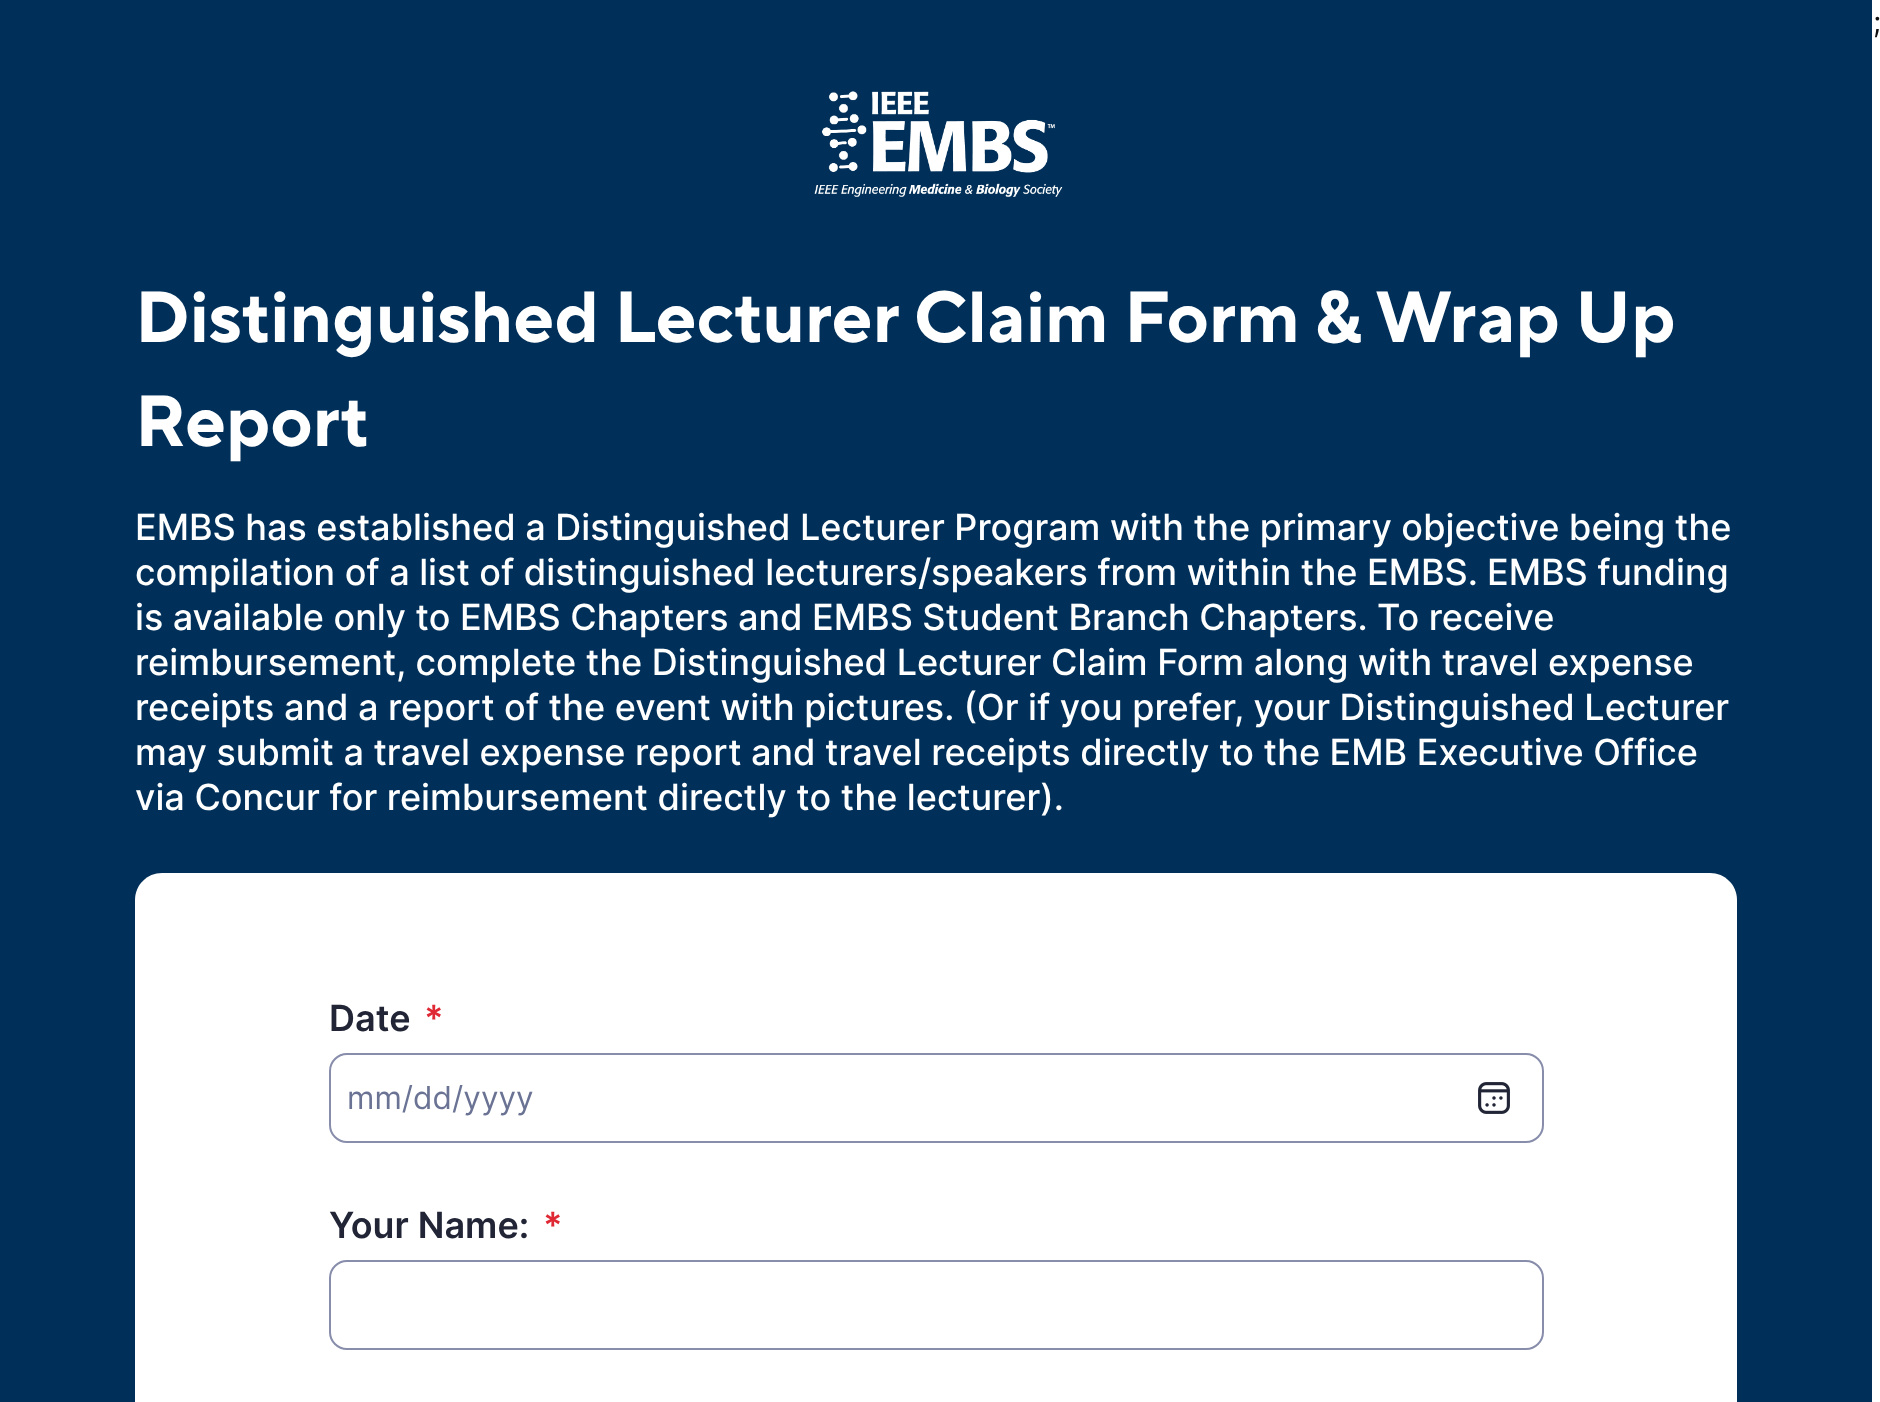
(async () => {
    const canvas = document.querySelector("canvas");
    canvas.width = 1880;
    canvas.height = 1402;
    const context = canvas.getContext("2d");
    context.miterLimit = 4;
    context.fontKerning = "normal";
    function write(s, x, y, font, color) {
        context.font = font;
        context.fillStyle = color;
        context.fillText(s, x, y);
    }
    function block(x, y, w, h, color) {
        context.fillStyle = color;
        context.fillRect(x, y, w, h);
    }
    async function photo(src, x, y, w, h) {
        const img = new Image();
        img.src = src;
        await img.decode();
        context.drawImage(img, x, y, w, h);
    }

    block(0, 0, 1880, 1402, "rgb(255, 255, 255)");
    write(";", 1873, 32, "29px Inter", "rgb(17, 17, 17)");
    block(0, 0, 1872, 1402, "rgb(0, 48, 89)");
    await photo("media/1.png", 814, 91, 249, 106);
    write("Distinguished Lecturer Claim Form & Wrap Up", 135, 342, "bold 72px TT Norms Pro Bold", "rgb(255, 255, 255)");
    write("Report", 135, 446, "bold 72px TT Norms Pro Bold", "rgb(255, 255, 255)");
    write("EMBS has established a Distinguished Lecturer Program with the primary objective being the", 135, 540, "500 36px Inter", "rgb(255, 255, 255)");
    write("compilation of a list of distinguished lecturers/speakers from within the EMBS. EMBS funding", 135, 585, "500 36px Inter", "rgb(255, 255, 255)");
    write("is available only to EMBS Chapters and EMBS Student Branch Chapters. To receive", 135, 630, "500 36px Inter", "rgb(255, 255, 255)");
    write("reimbursement, complete the Distinguished Lecturer Claim Form along with travel expense", 135, 675, "500 36px Inter", "rgb(255, 255, 255)");
    write("receipts and a report of the event with pictures. (Or if you prefer, your Distinguished Lecturer", 135, 720, "500 36px Inter", "rgb(255, 255, 255)");
    write("may submit a travel expense report and travel receipts directly to the EMB Executive Office", 135, 765, "500 36px Inter", "rgb(255, 255, 255)");
    write("via Concur for reimbursement directly to the lecturer).", 135, 810, "500 36px Inter", "rgb(255, 255, 255)");
    context.beginPath();
    context.moveTo(162, 873);
    context.lineTo(1710, 873);
    context.bezierCurveTo(1725, 873, 1737, 885, 1737, 900);
    context.lineTo(1737, 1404);
    context.lineTo(135, 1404);
    context.lineTo(135, 900);
    context.bezierCurveTo(135, 885, 147, 873, 162, 873);
    context.closePath();
    context.fill();
    write("Date", 329, 1031, "600 36px Inter", "rgb(33, 37, 54)");
    write("*", 424, 1031, "600 36px Inter", "rgb(223, 42, 54)");
    context.beginPath();
    context.roundRect(330, 1054, 1213, 88, 17);
    context.strokeStyle = "rgb(135, 141, 171)";
    context.lineWidth = 2;
    context.stroke();
    write("mm/dd/yyyy", 347, 1109, "31.5px Inter", "rgb(107, 115, 148)");
    await photo("media/2.png", 1478, 1082, 32, 32);
    write("Your Name:", 329, 1238, "600 36px Inter", "rgb(33, 37, 54)");
    write("*", 543, 1238, "600 36px Inter", "rgb(223, 42, 54)");
    context.beginPath();
    context.roundRect(330, 1261, 1213, 88, 17);
    context.stroke();
})();
